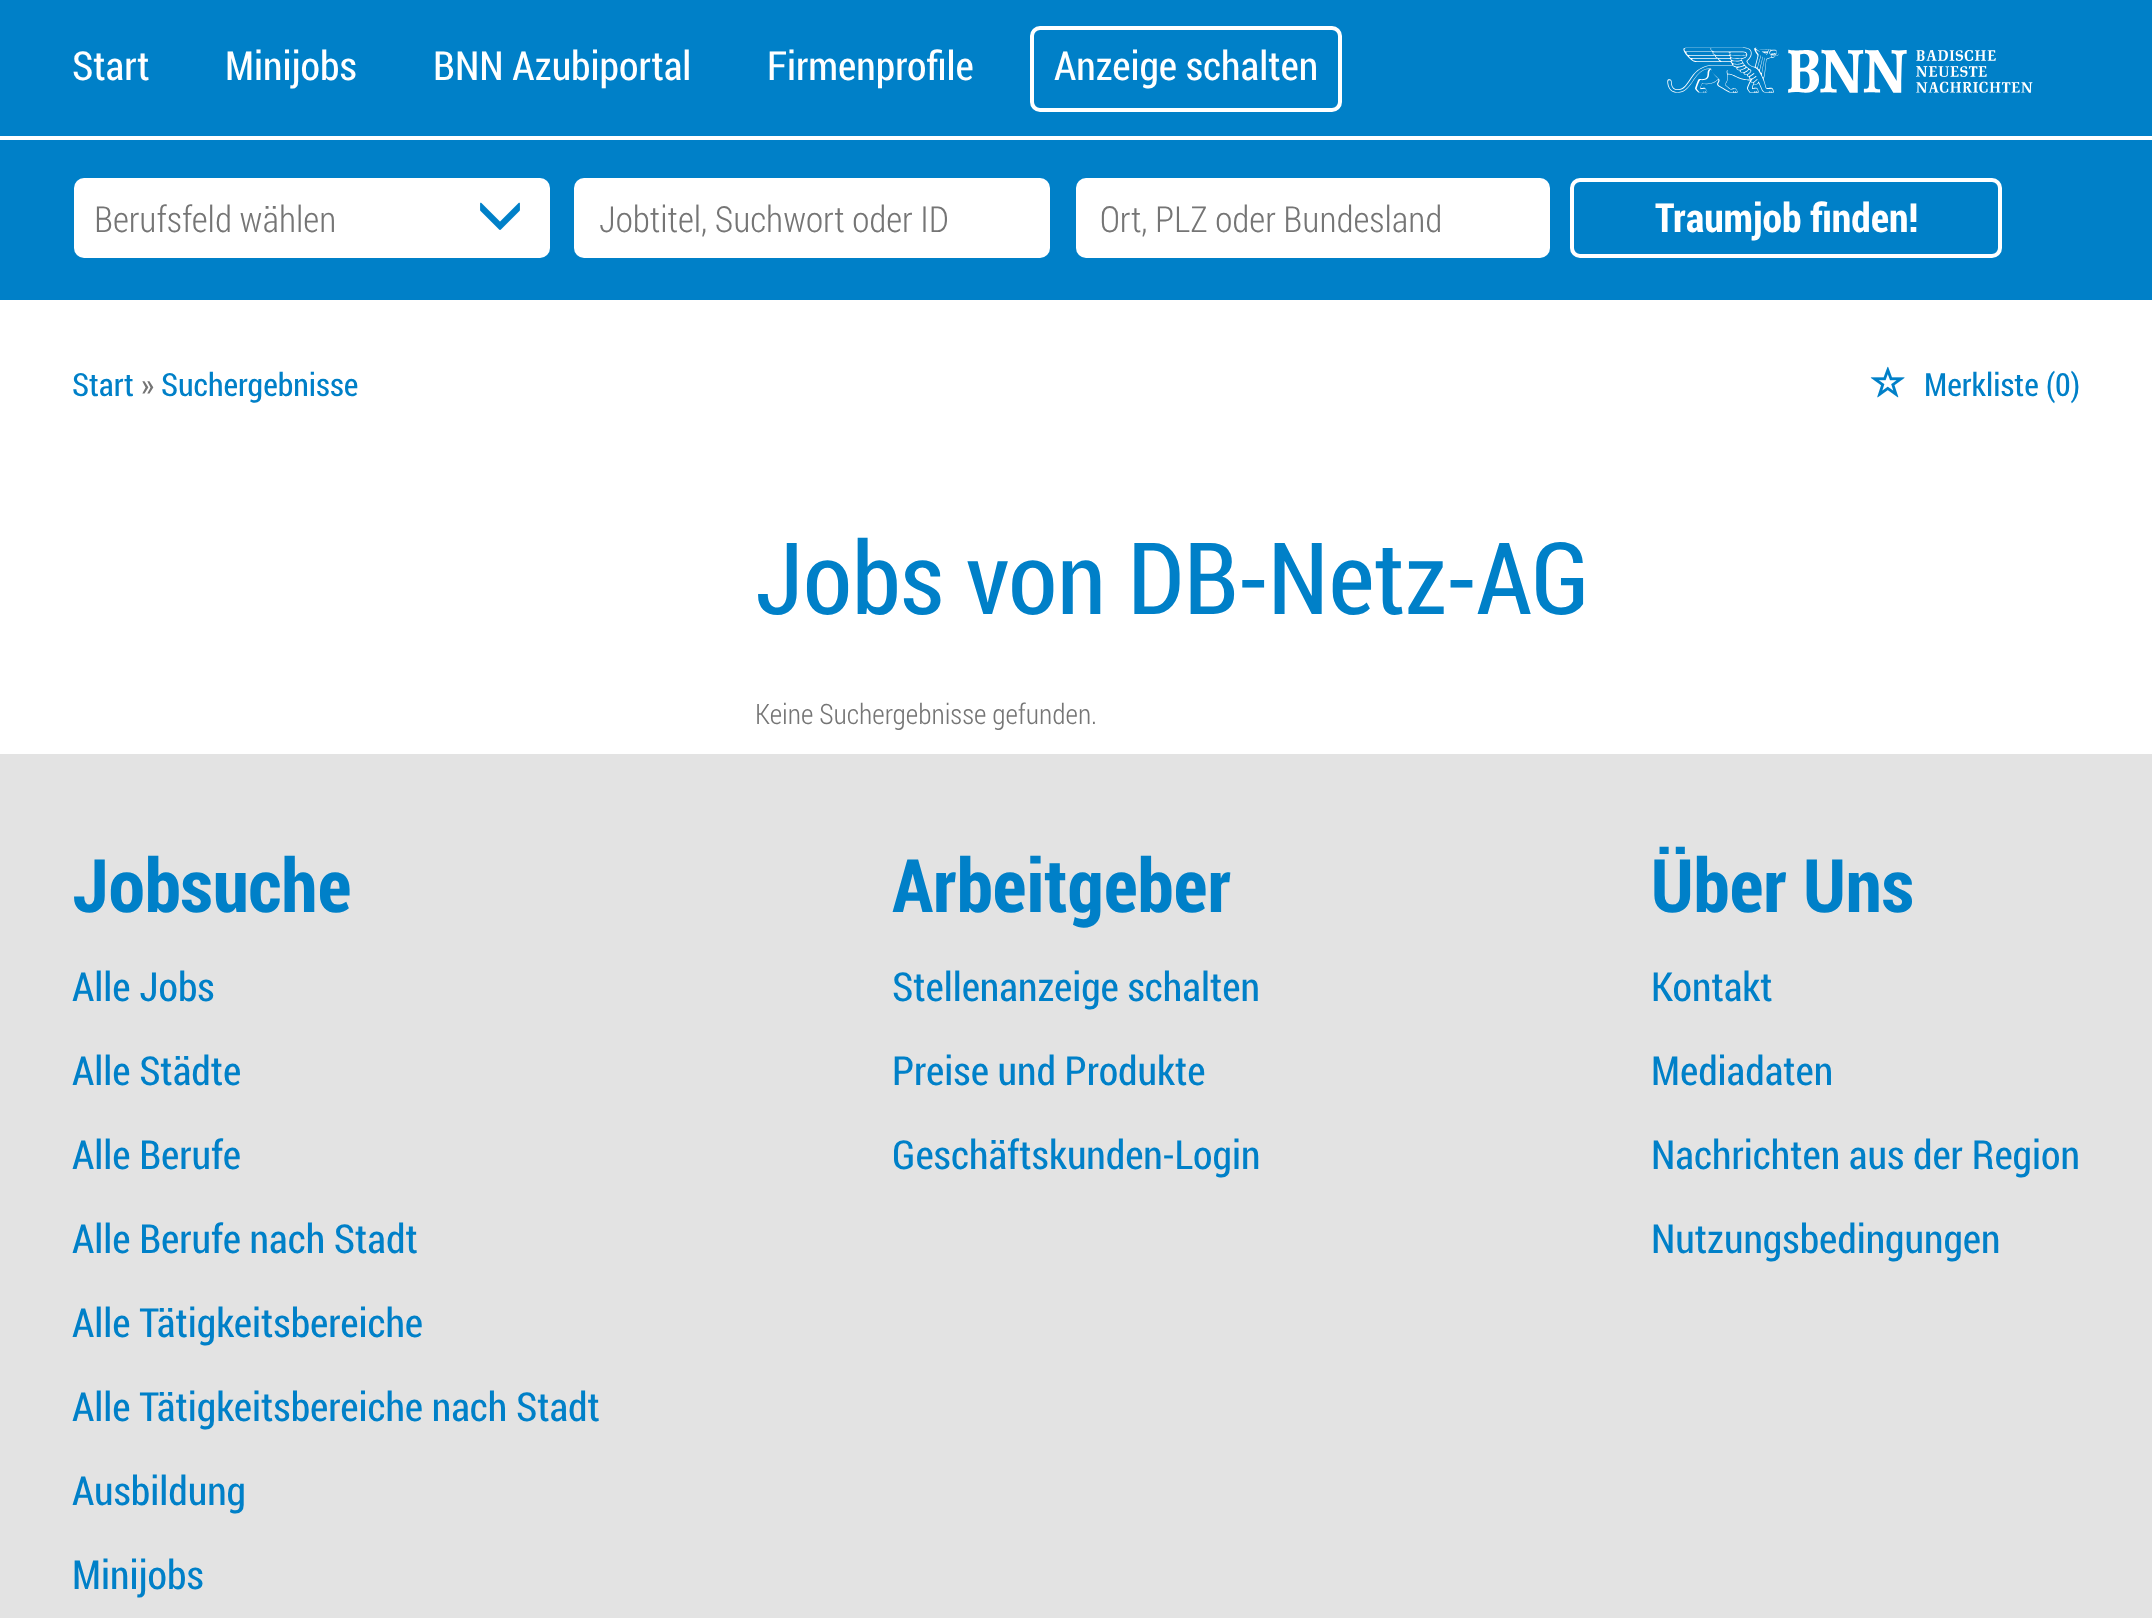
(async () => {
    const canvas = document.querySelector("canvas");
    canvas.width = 2152;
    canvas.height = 1618;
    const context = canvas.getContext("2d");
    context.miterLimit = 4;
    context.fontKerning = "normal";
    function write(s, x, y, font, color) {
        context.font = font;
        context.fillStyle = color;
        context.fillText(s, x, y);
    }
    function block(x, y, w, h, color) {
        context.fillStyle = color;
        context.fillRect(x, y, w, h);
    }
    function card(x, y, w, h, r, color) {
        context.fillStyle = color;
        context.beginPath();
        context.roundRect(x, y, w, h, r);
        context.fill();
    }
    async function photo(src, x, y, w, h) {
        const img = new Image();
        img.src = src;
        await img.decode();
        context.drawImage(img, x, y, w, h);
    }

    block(0, 0, 2152, 1618, "rgb(255, 255, 255)");
    block(0, 0, 2152, 136, "rgb(0, 128, 200)");
    write("Start", 72, 80, "40px Roboto Condensed", "rgb(255, 255, 255)");
    write("Minijobs", 225, 80, "40px Roboto Condensed", "rgb(255, 255, 255)");
    write("BNN Azubiportal", 433, 80, "40px Roboto Condensed", "rgb(255, 255, 255)");
    write("Firmenprofile", 767, 80, "40px Roboto Condensed", "rgb(255, 255, 255)");
    context.beginPath();
    context.roundRect(1032, 28, 308, 82, 8);
    context.strokeStyle = "rgb(255, 255, 255)";
    context.lineWidth = 4;
    context.stroke();
    write("Anzeige schalten", 1054, 80, "40px Roboto Condensed", "rgb(255, 255, 255)");
    await photo("media/1.png", 1667, 47, 366, 46);
    block(0, 140, 2152, 160, "rgb(0, 128, 200)");
    card(74, 178, 476, 80, 10, "rgb(255, 255, 255)");
    write("Berufsfeld wählen", 94, 232, "300 36px Roboto Condensed", "rgb(117, 117, 117)");
    await photo("media/2.png", 480, 202, 40, 28);
    card(574, 178, 476, 80, 10, "rgb(255, 255, 255)");
    write("Jobtitel, Suchwort oder ID", 599, 232, "300 36px Roboto Condensed", "rgb(117, 117, 117)");
    card(1076, 178, 474, 80, 10, "rgb(255, 255, 255)");
    write("Ort, PLZ oder Bundesland", 1100, 232, "300 36px Roboto Condensed", "rgb(117, 117, 117)");
    context.beginPath();
    context.roundRect(1572, 180, 428, 76, 8);
    context.stroke();
    write("Traumjob finden!", 1655, 232, "bold 40px Roboto Condensed", "rgb(255, 255, 255)");
    write("Start", 72, 396, "32px Roboto Condensed", "rgb(0, 128, 200)");
    write("»", 141, 396, "32px Roboto Condensed", "rgb(117, 117, 117)");
    write("Suchergebnisse", 161, 396, "32px Roboto Condensed", "rgb(0, 128, 200)");
    await photo("media/3.png", 1870, 366, 35, 32);
    write("Merkliste (0)", 1924, 396, "32px Roboto Condensed", "rgb(0, 128, 200)");
    write("Jobs von DB-Netz-AG", 755, 614, "100px Roboto Condensed", "rgb(0, 128, 200)");
    write("Keine Suchergebnisse gefunden.", 755, 724, "300 28px Roboto Condensed", "rgb(117, 117, 117)");
    block(0, 754, 2152, 864, "rgb(227, 227, 227)");
    write("Jobsuche", 72, 912, "bold 74px Roboto Condensed", "rgb(0, 128, 200)");
    write("Alle Jobs", 72, 1001, "40px Roboto Condensed", "rgb(0, 128, 200)");
    write("Alle Städte", 72, 1085, "40px Roboto Condensed", "rgb(0, 128, 200)");
    write("Alle Berufe", 72, 1169, "40px Roboto Condensed", "rgb(0, 128, 200)");
    write("Alle Berufe nach Stadt", 72, 1253, "40px Roboto Condensed", "rgb(0, 128, 200)");
    write("Alle Tätigkeitsbereiche", 72, 1337, "40px Roboto Condensed", "rgb(0, 128, 200)");
    write("Alle Tätigkeitsbereiche nach Stadt", 72, 1421, "40px Roboto Condensed", "rgb(0, 128, 200)");
    write("Ausbildung", 72, 1505, "40px Roboto Condensed", "rgb(0, 128, 200)");
    write("Minijobs", 72, 1589, "40px Roboto Condensed", "rgb(0, 128, 200)");
    write("Arbeitgeber", 892, 912, "bold 74px Roboto Condensed", "rgb(0, 128, 200)");
    write("Stellenanzeige schalten", 892, 1001, "40px Roboto Condensed", "rgb(0, 128, 200)");
    write("Preise und Produkte", 892, 1085, "40px Roboto Condensed", "rgb(0, 128, 200)");
    write("Geschäftskunden-Login", 892, 1169, "40px Roboto Condensed", "rgb(0, 128, 200)");
    write("Über Uns", 1651, 912, "bold 74px Roboto Condensed", "rgb(0, 128, 200)");
    write("Kontakt", 1651, 1001, "40px Roboto Condensed", "rgb(0, 128, 200)");
    write("Mediadaten", 1651, 1085, "40px Roboto Condensed", "rgb(0, 128, 200)");
    write("Nachrichten aus der Region", 1651, 1169, "40px Roboto Condensed", "rgb(0, 128, 200)");
    write("Nutzungsbedingungen", 1651, 1253, "40px Roboto Condensed", "rgb(0, 128, 200)");
})();
